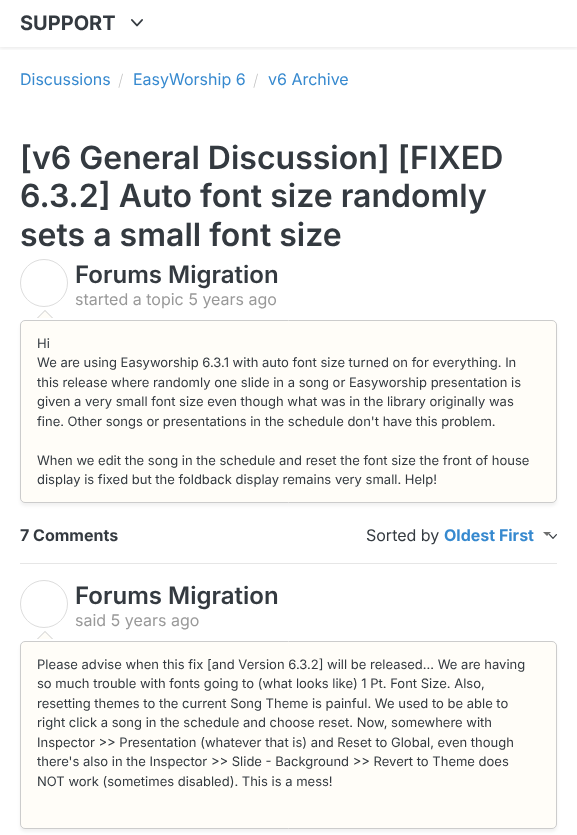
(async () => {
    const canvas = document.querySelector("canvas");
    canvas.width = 577;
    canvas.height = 835;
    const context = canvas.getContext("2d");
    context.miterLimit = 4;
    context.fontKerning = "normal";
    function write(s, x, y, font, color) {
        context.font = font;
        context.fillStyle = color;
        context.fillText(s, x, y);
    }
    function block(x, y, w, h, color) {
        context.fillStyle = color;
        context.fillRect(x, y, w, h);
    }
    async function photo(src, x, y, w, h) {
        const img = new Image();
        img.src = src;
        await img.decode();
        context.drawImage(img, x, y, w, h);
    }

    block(0, 0, 577, 835, "rgb(255, 255, 255)");
    context.save();
    context.beginPath();
    context.rect(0, 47, 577, 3);
    context.clip();
    context.fillStyle = "rgba(0, 0, 0, 0.1)";
    context.filter = "blur(2.5px)";
    context.beginPath();
    context.rect(-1, -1, 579, 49);
    context.fill();
    context.filter = "none";
    context.restore();
    write("SUPPORT", 20, 30, "bold 20px Inter", "rgb(52, 58, 64)");
    await photo("media/1.png", 131, 19, 12, 8);
    write("Discussions", 20, 85, "16px Inter", "rgb(54, 137, 207)");
    write("/", 118, 86, "200 16px Inter", "rgb(187, 187, 187)");
    write("EasyWorship 6", 133, 85, "16px Inter", "rgb(54, 137, 207)");
    write("/", 253, 86, "200 16px Inter", "rgb(187, 187, 187)");
    write("v6 Archive", 268, 85, "16px Inter", "rgb(54, 137, 207)");
    write("[v6 General Discussion] [FIXED", 20, 169, "600 32px Inter", "rgb(52, 58, 64)");
    write("6.3.2] Auto font size randomly", 20, 207, "600 32px Inter", "rgb(52, 58, 64)");
    write("sets a small font size", 20, 246, "600 32px Inter", "rgb(52, 58, 64)");
    context.beginPath();
    context.arc(44, 283, 23.5, 0, Math.PI * 2);
    context.strokeStyle = "rgb(221, 221, 221)";
    context.stroke();
    context.fillStyle = "rgba(0, 0, 0, 0.05)";
    context.filter = "blur(1.5px)";
    context.beginPath();
    context.roundRect(20, 323, 537, 183, 5);
    context.fill();
    context.filter = "none";
    context.fillStyle = "rgb(204, 204, 204)";
    context.beginPath();
    context.moveTo(53, 318);
    context.lineTo(37, 318);
    context.lineTo(45, 310);
    context.closePath();
    context.fill();
    context.fillStyle = "rgb(255, 253, 248)";
    context.beginPath();
    context.moveTo(52, 318);
    context.lineTo(38, 318);
    context.lineTo(45, 311);
    context.closePath();
    context.fill();
    write("Forums Migration", 75, 283, "600 24px Inter", "rgb(52, 58, 64)");
    write("started a topic 5 years ago", 75, 305, "16px Inter", "rgb(153, 153, 153)");
    context.fillStyle = "rgb(255, 253, 248)";
    context.beginPath();
    context.roundRect(20.5, 320.5, 536, 182, 4.5);
    context.fill();
    context.strokeStyle = "rgb(204, 204, 204)";
    context.stroke();
    write("Hi", 37, 348, "13px Inter", "rgb(52, 58, 64)");
    write("We are using Easyworship 6.3.1 with auto font size turned on for everything. In", 37, 367, "13px Inter", "rgb(52, 58, 64)");
    write("this release where randomly one slide in a song or Easyworship presentation is", 37, 387, "13px Inter", "rgb(52, 58, 64)");
    write("given a very small font size even though what was in the library originally was", 37, 406, "13px Inter", "rgb(52, 58, 64)");
    write("fine. Other songs or presentations in the schedule don't have this problem.", 37, 426, "13px Inter", "rgb(52, 58, 64)");
    write("When we edit the song in the schedule and reset the font size the front of house", 37, 465, "13px Inter", "rgb(52, 58, 64)");
    write("display is fixed but the foldback display remains very small. Help!", 37, 484, "13px Inter", "rgb(52, 58, 64)");
    write("7 Comments", 20, 541, "bold 16px Inter", "rgb(52, 58, 64)");
    write("Sorted by", 366, 541, "16px Inter", "rgb(52, 58, 64)");
    write("Oldest First", 444, 541, "bold 16px Inter", "rgb(54, 137, 207)");
    context.fillStyle = "rgb(111, 111, 111)";
    context.beginPath();
    context.moveTo(543, 532);
    context.lineTo(551, 532);
    context.lineTo(547, 536);
    context.closePath();
    context.fill();
    await photo("media/2.png", 549, 534, 8, 5);
    block(20, 563, 537, 1, "rgb(230, 230, 230)");
    context.beginPath();
    context.arc(44, 604, 23.5, 0, Math.PI * 2);
    context.strokeStyle = "rgb(221, 221, 221)";
    context.stroke();
    context.fillStyle = "rgba(0, 0, 0, 0.05)";
    context.filter = "blur(1.5px)";
    context.beginPath();
    context.roundRect(20, 644, 537, 188, 5);
    context.fill();
    context.filter = "none";
    context.fillStyle = "rgb(204, 204, 204)";
    context.beginPath();
    context.moveTo(53, 639);
    context.lineTo(37, 639);
    context.lineTo(45, 631);
    context.closePath();
    context.fill();
    context.fillStyle = "rgb(255, 253, 248)";
    context.beginPath();
    context.moveTo(52, 639);
    context.lineTo(38, 639);
    context.lineTo(45, 632);
    context.closePath();
    context.fill();
    write("Forums Migration", 75, 604, "600 24px Inter", "rgb(52, 58, 64)");
    write("said 5 years ago", 75, 626, "16px Inter", "rgb(153, 153, 153)");
    context.fillStyle = "rgb(255, 253, 248)";
    context.beginPath();
    context.roundRect(20.5, 641.5, 536, 187, 4.5);
    context.fill();
    context.strokeStyle = "rgb(204, 204, 204)";
    context.stroke();
    write("Please advise when this fix [and Version 6.3.2] will be released... We are having", 37, 669, "13px Inter", "rgb(52, 58, 64)");
    write("so much trouble with fonts going to (what looks like) 1 Pt. Font Size. Also,", 37, 688, "13px Inter", "rgb(52, 58, 64)");
    write("resetting themes to the current Song Theme is painful. We used to be able to", 37, 708, "13px Inter", "rgb(52, 58, 64)");
    write("right click a song in the schedule and choose reset. Now, somewhere with", 37, 727, "13px Inter", "rgb(52, 58, 64)");
    write("Inspector >> Presentation (whatever that is) and Reset to Global, even though", 37, 747, "13px Inter", "rgb(52, 58, 64)");
    write("there's also in the Inspector >> Slide - Background >> Revert to Theme does", 37, 766, "13px Inter", "rgb(52, 58, 64)");
    write("NOT work (sometimes disabled). This is a mess!", 37, 786, "13px Inter", "rgb(52, 58, 64)");
})();
